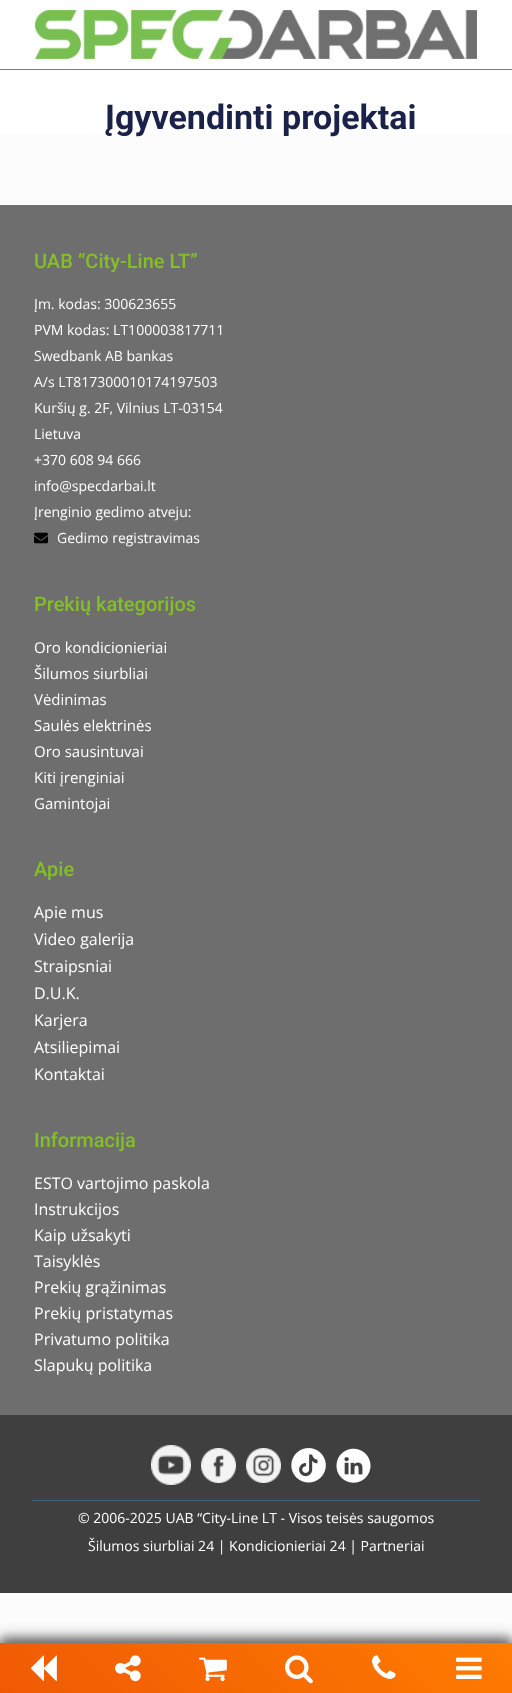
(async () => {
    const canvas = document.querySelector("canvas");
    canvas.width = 512;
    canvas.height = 1693;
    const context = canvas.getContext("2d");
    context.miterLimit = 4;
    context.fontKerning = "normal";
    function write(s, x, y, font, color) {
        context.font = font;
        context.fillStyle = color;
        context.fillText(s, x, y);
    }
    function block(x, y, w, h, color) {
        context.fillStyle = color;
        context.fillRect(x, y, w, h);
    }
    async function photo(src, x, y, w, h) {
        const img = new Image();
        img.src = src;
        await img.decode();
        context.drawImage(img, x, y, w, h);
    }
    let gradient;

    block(0, 0, 512, 1693, "rgb(252, 252, 252)");
    block(0, 0, 512, 69, "rgb(255, 255, 255)");
    block(0, 69, 512, 1, "rgb(124, 124, 124)");
    await photo("media/1.png", 35, 10, 442, 49);
    block(0, 70, 512, 64, "rgb(255, 255, 255)");
    write("Įgyvendinti projektai", 105, 129, "bold 34px Roboto", "rgb(27, 34, 74)");
    block(0, 205, 512, 1210, "rgb(110, 110, 110)");
    write("UAB “City-Line LT”", 34, 268, "500 20px Roboto", "rgb(131, 191, 37)");
    write("Įm. kodas: 300623655", 34, 309, "14px Open Sans", "rgb(255, 255, 255)");
    write("PVM kodas: LT100003817711", 34, 335, "14px Open Sans", "rgb(255, 255, 255)");
    write("Swedbank AB bankas", 34, 361, "14px Open Sans", "rgb(255, 255, 255)");
    write("A/s LT817300010174197503", 34, 387, "14px Open Sans", "rgb(255, 255, 255)");
    write("Kuršių g. 2F, Vilnius LT-03154", 34, 413, "14px Open Sans", "rgb(255, 255, 255)");
    write("Lietuva", 34, 439, "14px Open Sans", "rgb(255, 255, 255)");
    write("+370 608 94 666", 34, 465, "14px Open Sans", "rgb(255, 255, 255)");
    write("info@specdarbai.lt", 34, 491, "14px Open Sans", "rgb(255, 255, 255)");
    write("Įrenginio gedimo atveju:", 34, 517, "14px Open Sans", "rgb(255, 255, 255)");
    await photo("media/2.png", 34, 532, 14, 12);
    write("Gedimo registravimas", 57, 543, "14px Open Sans", "rgb(255, 255, 255)");
    write("Prekių kategorijos", 34, 611, "500 20px Roboto", "rgb(131, 191, 37)");
    write("Oro kondicionieriai", 34, 653, "15px Open Sans", "rgb(255, 255, 255)");
    write("Šilumos siurbliai", 34, 679, "15px Open Sans", "rgb(255, 255, 255)");
    write("Vėdinimas", 34, 705, "15px Open Sans", "rgb(255, 255, 255)");
    write("Saulės elektrinės", 34, 731, "15px Open Sans", "rgb(255, 255, 255)");
    write("Oro sausintuvai", 34, 757, "15px Open Sans", "rgb(255, 255, 255)");
    write("Kiti įrenginiai", 34, 783, "15px Open Sans", "rgb(255, 255, 255)");
    write("Gamintojai", 34, 809, "15px Open Sans", "rgb(255, 255, 255)");
    write("Apie", 34, 876, "500 20px Roboto", "rgb(131, 191, 37)");
    write("Apie mus", 34, 918, "16px Open Sans", "rgb(255, 255, 255)");
    write("Video galerija", 34, 945, "16px Open Sans", "rgb(255, 255, 255)");
    write("Straipsniai", 34, 972, "16px Open Sans", "rgb(255, 255, 255)");
    write("D.U.K.", 34, 999, "16px Open Sans", "rgb(255, 255, 255)");
    write("Karjera", 34, 1026, "16px Open Sans", "rgb(255, 255, 255)");
    write("Atsiliepimai", 34, 1053, "16px Open Sans", "rgb(255, 255, 255)");
    write("Kontaktai", 34, 1080, "16px Open Sans", "rgb(255, 255, 255)");
    write("Informacija", 34, 1147, "500 20px Roboto", "rgb(131, 191, 37)");
    write("ESTO vartojimo paskola", 34, 1189, "16px Open Sans", "rgb(255, 255, 255)");
    write("Instrukcijos", 34, 1215, "16px Open Sans", "rgb(255, 255, 255)");
    write("Kaip užsakyti", 34, 1241, "16px Open Sans", "rgb(255, 255, 255)");
    write("Taisyklės", 34, 1267, "16px Open Sans", "rgb(255, 255, 255)");
    write("Prekių grąžinimas", 34, 1293, "16px Open Sans", "rgb(255, 255, 255)");
    write("Prekių pristatymas", 34, 1319, "16px Open Sans", "rgb(255, 255, 255)");
    write("Privatumo politika", 34, 1345, "16px Open Sans", "rgb(255, 255, 255)");
    write("Slapukų politika", 34, 1371, "16px Open Sans", "rgb(255, 255, 255)");
    block(0, 1415, 512, 178, "rgb(63, 63, 63)");
    await photo("media/3.png", 151, 1445, 40, 40);
    await photo("media/4.png", 201, 1448, 35, 35);
    await photo("media/5.png", 246, 1448, 35, 35);
    await photo("media/6.png", 291, 1448, 35, 35);
    await photo("media/7.png", 336, 1448, 35, 35);
    block(32, 1500, 448, 1, "rgb(73, 100, 127)");
    write("© 2006-2025 UAB “City-Line LT - Visos teisės saugomos", 78, 1523, "14px Open Sans", "rgb(255, 255, 255)");
    write("Šilumos siurbliai 24 | Kondicionieriai 24 | Partneriai", 88, 1551, "14px Open Sans", "rgb(255, 255, 255)");
    context.fillStyle = "rgba(0, 0, 0, 0.4)";
    context.filter = "blur(7.5px)";
    context.beginPath();
    context.rect(0, 1638, 512, 50);
    context.fill();
    context.filter = "none";
    context.fillStyle = "rgba(0, 0, 0, 0.2)";
    context.filter = "blur(5px)";
    context.beginPath();
    context.rect(0, 1638, 512, 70);
    context.fill();
    context.filter = "none";
    context.filter = "blur(5px)";
    context.beginPath();
    context.rect(0, 1639, 512, 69);
    context.fill();
    context.filter = "none";
    gradient = context.createLinearGradient(116, 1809, 397, 1528);
    gradient.addColorStop(0, "rgb(240, 90, 4)");
    gradient.addColorStop(1, "rgb(255, 123, 0)");
    context.fillStyle = gradient;
    context.fillRect(0, 1643, 512, 50);
    await photo("media/8.png", 31, 1655, 26, 27);
    await photo("media/9.png", 115, 1655, 26, 27);
    await photo("media/10.png", 199, 1657, 28, 25);
    await photo("media/11.png", 285, 1655, 28, 29);
    await photo("media/12.png", 372, 1655, 24, 24);
    await photo("media/13.png", 456, 1657, 26, 22);
})();
